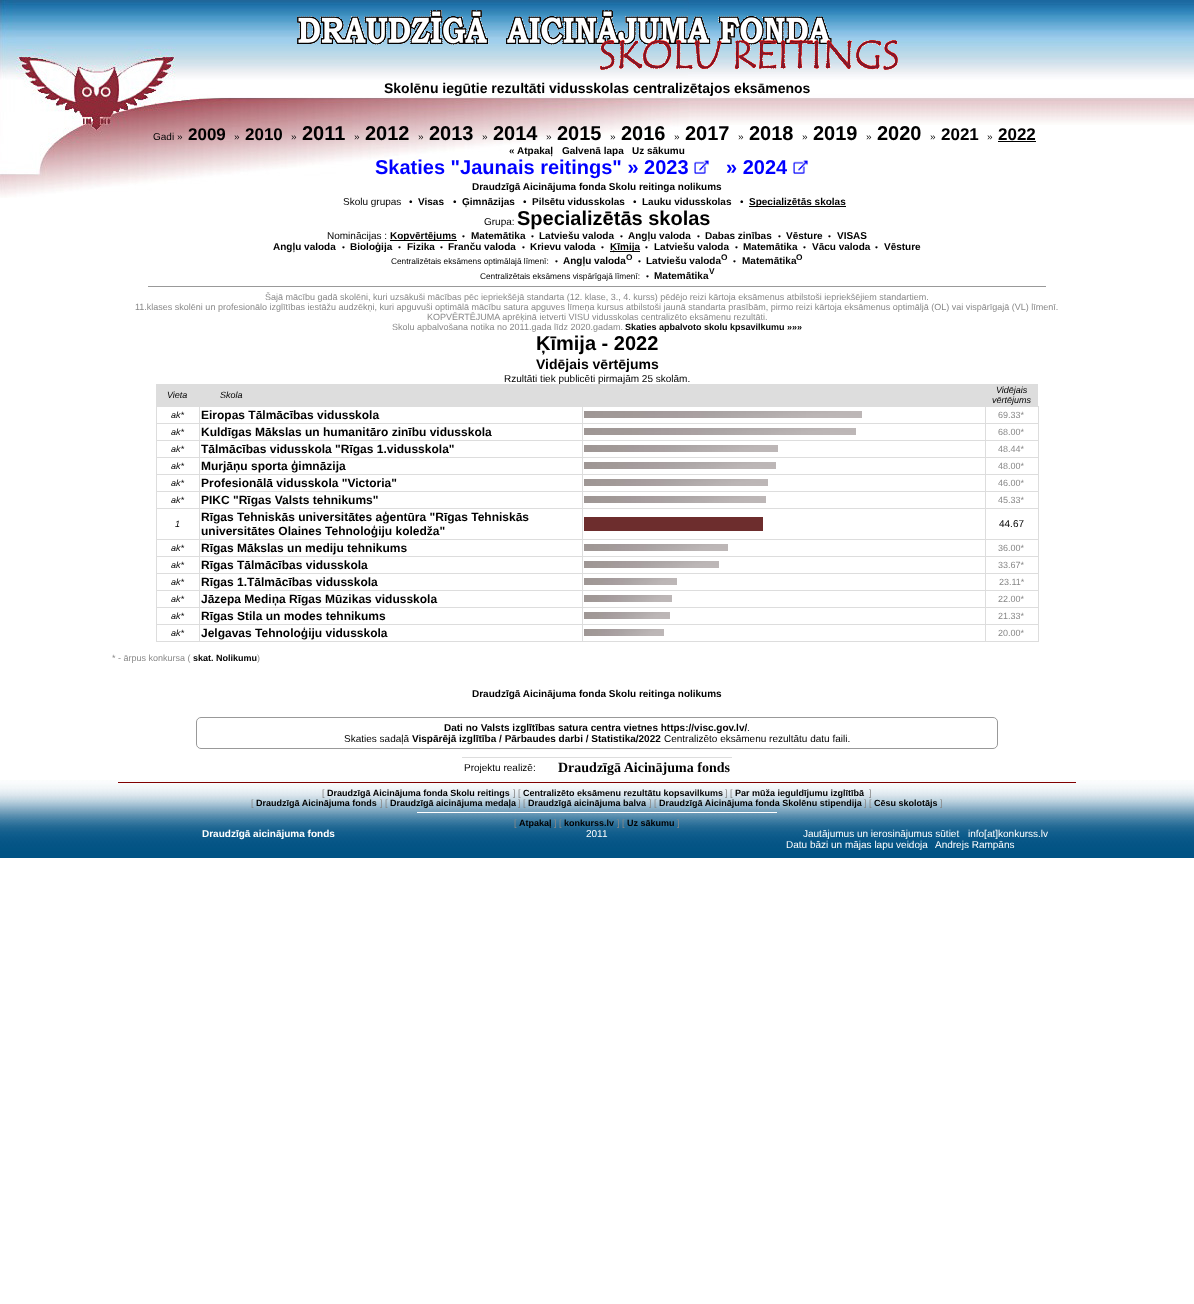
(async () => {
    const canvas = document.querySelector("canvas");
    canvas.width = 1194;
    canvas.height = 1304;
    const context = canvas.getContext("2d");
    context.miterLimit = 4;
    context.fontKerning = "normal";
    function write(s, x, y, font, color) {
        context.font = font;
        context.fillStyle = color;
        context.fillText(s, x, y);
    }
    function block(x, y, w, h, color) {
        context.fillStyle = color;
        context.fillRect(x, y, w, h);
    }
    async function photo(src, x, y, w, h) {
        const img = new Image();
        img.src = src;
        await img.decode();
        context.drawImage(img, x, y, w, h);
    }

    block(0, 0, 1194, 1304, "rgb(255, 255, 255)");
    await photo("media/1.png", 689, 0, 505, 125);
    await photo("media/2.png", 0, 0, 689, 198);
    await photo("media/3.png", 297, 10, 601, 60);
    write("Skolēnu iegūtie rezultāti vidusskolas centralizētajos eksāmenos", 384, 93, "bold 14px Liberation Sans", "rgb(0, 0, 0)");
    write("Gadi »", 153, 140, "10px Liberation Sans", "rgb(0, 0, 0)");
    write("2009", 188, 140, "bold 17px Liberation Sans", "rgb(0, 0, 0)");
    write("»", 234, 140, "10px Liberation Sans", "rgb(0, 0, 0)");
    write("2010", 245, 140, "bold 17px Liberation Sans", "rgb(0, 0, 0)");
    write("»", 291, 140, "10px Liberation Sans", "rgb(0, 0, 0)");
    write("2011", 302, 140, "bold 20px Liberation Sans", "rgb(0, 0, 0)");
    write("»", 354, 140, "10px Liberation Sans", "rgb(0, 0, 0)");
    write("2012", 365, 140, "bold 20px Liberation Sans", "rgb(0, 0, 0)");
    write("»", 418, 140, "10px Liberation Sans", "rgb(0, 0, 0)");
    write("2013", 429, 140, "bold 20px Liberation Sans", "rgb(0, 0, 0)");
    write("»", 482, 140, "10px Liberation Sans", "rgb(0, 0, 0)");
    write("2014", 493, 140, "bold 20px Liberation Sans", "rgb(0, 0, 0)");
    write("»", 546, 140, "10px Liberation Sans", "rgb(0, 0, 0)");
    write("2015", 557, 140, "bold 20px Liberation Sans", "rgb(0, 0, 0)");
    write("»", 610, 140, "10px Liberation Sans", "rgb(0, 0, 0)");
    write("2016", 621, 140, "bold 20px Liberation Sans", "rgb(0, 0, 0)");
    write("»", 674, 140, "10px Liberation Sans", "rgb(0, 0, 0)");
    write("2017", 685, 140, "bold 20px Liberation Sans", "rgb(0, 0, 0)");
    write("»", 738, 140, "10px Liberation Sans", "rgb(0, 0, 0)");
    write("2018", 749, 140, "bold 20px Liberation Sans", "rgb(0, 0, 0)");
    write("»", 802, 140, "10px Liberation Sans", "rgb(0, 0, 0)");
    write("2019", 813, 140, "bold 20px Liberation Sans", "rgb(0, 0, 0)");
    write("»", 866, 140, "10px Liberation Sans", "rgb(0, 0, 0)");
    write("2020", 877, 140, "bold 20px Liberation Sans", "rgb(0, 0, 0)");
    write("»", 930, 140, "10px Liberation Sans", "rgb(0, 0, 0)");
    write("2021", 941, 140, "bold 17px Liberation Sans", "rgb(0, 0, 0)");
    write("»", 987, 140, "10px Liberation Sans", "rgb(0, 0, 0)");
    write("2022", 998, 140, "bold 17px Liberation Sans", "rgb(0, 0, 0)");
    block(998, 141, 38, 1, "rgb(0, 0, 0)");
    write("« Atpakaļ", 509, 154, "bold 10px Liberation Sans", "rgb(0, 0, 0)");
    write("Galvenā lapa", 562, 154, "bold 10px Liberation Sans", "rgb(0, 0, 0)");
    write("Uz sākumu", 632, 154, "bold 10px Liberation Sans", "rgb(0, 0, 0)");
    write("Skaties \"Jaunais reitings\" » 2023", 375, 174, "bold 20px Liberation Sans", "rgb(0, 0, 255)");
    await photo("media/4.png", 694, 160, 15, 14);
    write("» 2024", 726, 174, "bold 20px Liberation Sans", "rgb(0, 0, 255)");
    await photo("media/5.png", 793, 160, 15, 14);
    write("Draudzīgā Aicinājuma fonda Skolu reitinga nolikums", 472, 190, "bold 10px Liberation Sans", "rgb(0, 0, 0)");
    write("Skolu grupas", 343, 205, "10px Liberation Sans", "rgb(0, 0, 0)");
    write("•", 409, 205, "10px Liberation Sans", "rgb(0, 0, 0)");
    write("Visas", 418, 205, "bold 10px Liberation Sans", "rgb(0, 0, 0)");
    write("•", 453, 205, "10px Liberation Sans", "rgb(0, 0, 0)");
    write("Ģimnāzijas", 462, 205, "bold 10px Liberation Sans", "rgb(0, 0, 0)");
    write("•", 523, 205, "10px Liberation Sans", "rgb(0, 0, 0)");
    write("Pilsētu vidusskolas", 532, 205, "bold 10px Liberation Sans", "rgb(0, 0, 0)");
    write("•", 633, 205, "10px Liberation Sans", "rgb(0, 0, 0)");
    write("Lauku vidusskolas", 642, 205, "bold 10px Liberation Sans", "rgb(0, 0, 0)");
    write("•", 740, 205, "10px Liberation Sans", "rgb(0, 0, 0)");
    block(749, 206, 97, 1, "rgb(0, 0, 0)");
    write("Specializētās skolas", 749, 205, "bold 10px Liberation Sans", "rgb(0, 0, 0)");
    write("Grupa:", 484, 225, "10px Liberation Sans", "rgb(0, 0, 0)");
    write("Specializētās skolas", 517, 225, "bold 20px Liberation Sans", "rgb(0, 0, 0)");
    write("Nominācijas :", 327, 239, "10px Liberation Sans", "rgb(0, 0, 0)");
    block(390, 240, 67, 1, "rgb(0, 0, 0)");
    write("Kopvērtējums", 390, 239, "bold 10px Liberation Sans", "rgb(0, 0, 0)");
    write("•", 462, 239, "8.3px Liberation Sans", "rgb(0, 0, 0)");
    write("Matemātika", 471, 239, "bold 10px Liberation Sans", "rgb(0, 0, 0)");
    write("•", 531, 239, "8.3px Liberation Sans", "rgb(0, 0, 0)");
    write("Latviešu valoda", 539, 239, "bold 10px Liberation Sans", "rgb(0, 0, 0)");
    write("•", 620, 239, "8.3px Liberation Sans", "rgb(0, 0, 0)");
    write("Angļu valoda", 628, 239, "bold 10px Liberation Sans", "rgb(0, 0, 0)");
    write("•", 697, 239, "8.3px Liberation Sans", "rgb(0, 0, 0)");
    write("Dabas zinības", 705, 239, "bold 10px Liberation Sans", "rgb(0, 0, 0)");
    write("•", 778, 239, "8.3px Liberation Sans", "rgb(0, 0, 0)");
    write("Vēsture", 786, 239, "bold 10px Liberation Sans", "rgb(0, 0, 0)");
    write("•", 828, 239, "8.3px Liberation Sans", "rgb(0, 0, 0)");
    write("VISAS", 837, 239, "bold 10px Liberation Sans", "rgb(0, 0, 0)");
    write("Angļu valoda", 273, 250, "bold 10px Liberation Sans", "rgb(0, 0, 0)");
    write("•", 342, 250, "8.3px Liberation Sans", "rgb(0, 0, 0)");
    write("Bioloģija", 350, 250, "bold 10px Liberation Sans", "rgb(0, 0, 0)");
    write("•", 398, 250, "8.3px Liberation Sans", "rgb(0, 0, 0)");
    write("Fizika", 407, 250, "bold 10px Liberation Sans", "rgb(0, 0, 0)");
    write("•", 440, 250, "8.3px Liberation Sans", "rgb(0, 0, 0)");
    write("Franču valoda", 448, 250, "bold 10px Liberation Sans", "rgb(0, 0, 0)");
    write("•", 522, 250, "8.3px Liberation Sans", "rgb(0, 0, 0)");
    write("Krievu valoda", 530, 250, "bold 10px Liberation Sans", "rgb(0, 0, 0)");
    write("•", 601, 250, "8.3px Liberation Sans", "rgb(0, 0, 0)");
    block(610, 251, 30, 1, "rgb(0, 0, 0)");
    write("Ķīmija", 610, 250, "bold 10px Liberation Sans", "rgb(0, 0, 0)");
    write("•", 645, 250, "8.3px Liberation Sans", "rgb(0, 0, 0)");
    write("Latviešu valoda", 654, 250, "bold 10px Liberation Sans", "rgb(0, 0, 0)");
    write("•", 735, 250, "8.3px Liberation Sans", "rgb(0, 0, 0)");
    write("Matemātika", 743, 250, "bold 10px Liberation Sans", "rgb(0, 0, 0)");
    write("•", 803, 250, "8.3px Liberation Sans", "rgb(0, 0, 0)");
    write("Vācu valoda", 812, 250, "bold 10px Liberation Sans", "rgb(0, 0, 0)");
    write("•", 875, 250, "8.3px Liberation Sans", "rgb(0, 0, 0)");
    write("Vēsture", 884, 250, "bold 10px Liberation Sans", "rgb(0, 0, 0)");
    write("Centralizētais eksāmens optimālajā līmenī:", 391, 264, "8.3px Liberation Sans", "rgb(0, 0, 0)");
    write("•", 555, 264, "8.3px Liberation Sans", "rgb(0, 0, 0)");
    write("Angļu valoda", 563, 264, "bold 10px Liberation Sans", "rgb(0, 0, 0)");
    write("O", 626, 260, "bold 8.3px Liberation Sans", "rgb(0, 0, 0)");
    write("•", 638, 264, "8.3px Liberation Sans", "rgb(0, 0, 0)");
    write("Latviešu valoda", 646, 264, "bold 10px Liberation Sans", "rgb(0, 0, 0)");
    write("O", 721, 260, "bold 8.3px Liberation Sans", "rgb(0, 0, 0)");
    write("•", 733, 264, "8.3px Liberation Sans", "rgb(0, 0, 0)");
    write("Matemātika", 742, 264, "bold 10px Liberation Sans", "rgb(0, 0, 0)");
    write("O", 796, 260, "bold 8.3px Liberation Sans", "rgb(0, 0, 0)");
    write("Centralizētais eksāmens vispārīgajā līmenī:", 480, 279, "8.3px Liberation Sans", "rgb(0, 0, 0)");
    write("•", 646, 279, "8.3px Liberation Sans", "rgb(0, 0, 0)");
    write("Matemātika", 654, 279, "bold 10px Liberation Sans", "rgb(0, 0, 0)");
    write("V", 709, 274, "bold 8.3px Liberation Sans", "rgb(0, 0, 0)");
    block(148, 286, 898, 1, "rgb(153, 153, 153)");
    write("Šajā mācību gadā skolēni, kuri uzsākuši mācības pēc iepriekšējā standarta (12. klase, 3., 4. kurss) pēdējo reizi kārtoja eksāmenus atbilstoši iepriekšējiem standartiem.", 265, 300, "9px Liberation Sans", "rgb(136, 136, 136)");
    write("11.klases skolēni un profesionālo izglītības iestāžu audzēkņi, kuri apguvuši optimālā mācību satura apguves līmeņa kursus atbilstoši jaunā standarta prasībām, pirmo reizi kārtoja eksāmenus optimāljā (OL) vai vispārīgajā (VL) līmenī.", 135, 310, "9px Liberation Sans", "rgb(136, 136, 136)");
    write("KOPVĒRTĒJUMA aprēķinā ietverti VISU vidusskolas centralizēto eksāmenu rezultāti.", 427, 320, "9px Liberation Sans", "rgb(136, 136, 136)");
    write("Skolu apbalvošana notika no 2011.gada līdz 2020.gadam.", 392, 330, "9px Liberation Sans", "rgb(136, 136, 136)");
    write("Skaties apbalvoto skolu kpsavilkumu »»»", 625, 330, "bold 9px Liberation Sans", "rgb(0, 0, 0)");
    write("Ķīmija - 2022", 536, 350, "bold 20px Liberation Sans", "rgb(0, 0, 0)");
    write("Vidējais vērtējums", 536, 369, "bold 14px Liberation Sans", "rgb(0, 0, 0)");
    block(156, 384, 882, 22, "rgb(221, 221, 221)");
    write("Rzultāti tiek publicēti pirmajām 25 skolām.", 504, 382, "10px Liberation Sans", "rgb(0, 0, 0)");
    write("Vieta", 167, 398, "italic 9px Liberation Sans", "rgb(0, 0, 0)");
    write("Skola", 220, 398, "italic 9px Liberation Sans", "rgb(0, 0, 0)");
    write("Vidējais", 996, 393, "italic 9px Liberation Sans", "rgb(0, 0, 0)");
    write("vērtējums", 992, 403, "italic 9px Liberation Sans", "rgb(0, 0, 0)");
    block(985, 406, 54, 1, "rgb(221, 221, 221)");
    block(985, 423, 54, 1, "rgb(221, 221, 221)");
    block(985, 440, 54, 1, "rgb(221, 221, 221)");
    block(985, 457, 54, 1, "rgb(221, 221, 221)");
    block(985, 474, 54, 1, "rgb(221, 221, 221)");
    block(985, 491, 54, 1, "rgb(221, 221, 221)");
    block(985, 508, 54, 1, "rgb(221, 221, 221)");
    block(985, 539, 54, 1, "rgb(221, 221, 221)");
    block(985, 556, 54, 1, "rgb(221, 221, 221)");
    block(985, 573, 54, 1, "rgb(221, 221, 221)");
    block(985, 590, 54, 1, "rgb(221, 221, 221)");
    block(985, 607, 54, 1, "rgb(221, 221, 221)");
    block(985, 624, 54, 1, "rgb(221, 221, 221)");
    block(1038, 624, 1, 18, "rgb(221, 221, 221)");
    block(985, 641, 54, 1, "rgb(221, 221, 221)");
    block(985, 624, 1, 18, "rgb(221, 221, 221)");
    block(582, 624, 404, 1, "rgb(221, 221, 221)");
    block(985, 607, 1, 18, "rgb(221, 221, 221)");
    block(582, 607, 404, 1, "rgb(221, 221, 221)");
    block(985, 590, 1, 18, "rgb(221, 221, 221)");
    block(582, 590, 404, 1, "rgb(221, 221, 221)");
    block(985, 573, 1, 18, "rgb(221, 221, 221)");
    block(582, 573, 404, 1, "rgb(221, 221, 221)");
    block(985, 556, 1, 18, "rgb(221, 221, 221)");
    block(582, 556, 404, 1, "rgb(221, 221, 221)");
    block(985, 539, 1, 18, "rgb(221, 221, 221)");
    block(582, 539, 404, 1, "rgb(221, 221, 221)");
    block(985, 508, 1, 32, "rgb(221, 221, 221)");
    block(582, 508, 404, 1, "rgb(221, 221, 221)");
    block(985, 491, 1, 18, "rgb(221, 221, 221)");
    block(582, 491, 404, 1, "rgb(221, 221, 221)");
    block(985, 474, 1, 18, "rgb(221, 221, 221)");
    block(582, 474, 404, 1, "rgb(221, 221, 221)");
    block(985, 457, 1, 18, "rgb(221, 221, 221)");
    block(582, 457, 404, 1, "rgb(221, 221, 221)");
    block(985, 440, 1, 18, "rgb(221, 221, 221)");
    block(582, 440, 404, 1, "rgb(221, 221, 221)");
    block(985, 423, 1, 18, "rgb(221, 221, 221)");
    block(582, 423, 404, 1, "rgb(221, 221, 221)");
    block(985, 406, 1, 18, "rgb(221, 221, 221)");
    block(582, 406, 404, 1, "rgb(221, 221, 221)");
    block(582, 641, 404, 1, "rgb(221, 221, 221)");
    block(582, 624, 1, 18, "rgb(221, 221, 221)");
    block(199, 624, 384, 1, "rgb(221, 221, 221)");
    block(582, 607, 1, 18, "rgb(221, 221, 221)");
    block(199, 607, 384, 1, "rgb(221, 221, 221)");
    block(582, 590, 1, 18, "rgb(221, 221, 221)");
    block(199, 590, 384, 1, "rgb(221, 221, 221)");
    block(582, 573, 1, 18, "rgb(221, 221, 221)");
    block(199, 573, 384, 1, "rgb(221, 221, 221)");
    block(582, 556, 1, 18, "rgb(221, 221, 221)");
    block(199, 556, 384, 1, "rgb(221, 221, 221)");
    block(582, 539, 1, 18, "rgb(221, 221, 221)");
    block(199, 539, 384, 1, "rgb(221, 221, 221)");
    block(582, 508, 1, 32, "rgb(221, 221, 221)");
    block(199, 508, 384, 1, "rgb(221, 221, 221)");
    block(582, 491, 1, 18, "rgb(221, 221, 221)");
    block(199, 491, 384, 1, "rgb(221, 221, 221)");
    block(582, 474, 1, 18, "rgb(221, 221, 221)");
    block(199, 474, 384, 1, "rgb(221, 221, 221)");
    block(582, 457, 1, 18, "rgb(221, 221, 221)");
    block(199, 457, 384, 1, "rgb(221, 221, 221)");
    block(582, 440, 1, 18, "rgb(221, 221, 221)");
    block(199, 440, 384, 1, "rgb(221, 221, 221)");
    block(582, 423, 1, 18, "rgb(221, 221, 221)");
    block(199, 423, 384, 1, "rgb(221, 221, 221)");
    block(582, 406, 1, 18, "rgb(221, 221, 221)");
    block(199, 406, 384, 1, "rgb(221, 221, 221)");
    block(199, 641, 384, 1, "rgb(221, 221, 221)");
    block(199, 624, 1, 18, "rgb(221, 221, 221)");
    block(156, 624, 44, 1, "rgb(221, 221, 221)");
    block(199, 607, 1, 18, "rgb(221, 221, 221)");
    block(156, 607, 44, 1, "rgb(221, 221, 221)");
    block(199, 590, 1, 18, "rgb(221, 221, 221)");
    block(156, 590, 44, 1, "rgb(221, 221, 221)");
    block(199, 573, 1, 18, "rgb(221, 221, 221)");
    block(156, 573, 44, 1, "rgb(221, 221, 221)");
    block(199, 556, 1, 18, "rgb(221, 221, 221)");
    block(156, 556, 44, 1, "rgb(221, 221, 221)");
    block(199, 539, 1, 18, "rgb(221, 221, 221)");
    block(156, 539, 44, 1, "rgb(221, 221, 221)");
    block(199, 508, 1, 32, "rgb(221, 221, 221)");
    block(156, 508, 44, 1, "rgb(221, 221, 221)");
    block(199, 491, 1, 18, "rgb(221, 221, 221)");
    block(156, 491, 44, 1, "rgb(221, 221, 221)");
    block(199, 474, 1, 18, "rgb(221, 221, 221)");
    block(156, 474, 44, 1, "rgb(221, 221, 221)");
    block(199, 457, 1, 18, "rgb(221, 221, 221)");
    block(156, 457, 44, 1, "rgb(221, 221, 221)");
    block(199, 440, 1, 18, "rgb(221, 221, 221)");
    block(156, 440, 44, 1, "rgb(221, 221, 221)");
    block(199, 423, 1, 18, "rgb(221, 221, 221)");
    block(156, 423, 44, 1, "rgb(221, 221, 221)");
    block(199, 406, 1, 18, "rgb(221, 221, 221)");
    block(156, 406, 44, 1, "rgb(221, 221, 221)");
    block(156, 641, 44, 1, "rgb(221, 221, 221)");
    block(156, 624, 1, 18, "rgb(221, 221, 221)");
    block(156, 607, 1, 18, "rgb(221, 221, 221)");
    block(156, 590, 1, 18, "rgb(221, 221, 221)");
    block(156, 573, 1, 18, "rgb(221, 221, 221)");
    block(156, 556, 1, 18, "rgb(221, 221, 221)");
    block(156, 539, 1, 18, "rgb(221, 221, 221)");
    block(156, 508, 1, 32, "rgb(221, 221, 221)");
    block(156, 491, 1, 18, "rgb(221, 221, 221)");
    block(156, 474, 1, 18, "rgb(221, 221, 221)");
    block(156, 457, 1, 18, "rgb(221, 221, 221)");
    block(156, 440, 1, 18, "rgb(221, 221, 221)");
    block(156, 423, 1, 18, "rgb(221, 221, 221)");
    block(156, 406, 1, 18, "rgb(221, 221, 221)");
    write("ak*", 171, 418, "italic 9px Liberation Sans", "rgb(0, 0, 0)");
    write("Eiropas Tālmācības vidusskola", 201, 419, "bold 12px Liberation Sans", "rgb(0, 0, 0)");
    await photo("media/6.png", 584, 411, 278, 7);
    block(1038, 607, 1, 18, "rgb(221, 221, 221)");
    block(1038, 590, 1, 18, "rgb(221, 221, 221)");
    block(1038, 573, 1, 18, "rgb(221, 221, 221)");
    block(1038, 556, 1, 18, "rgb(221, 221, 221)");
    block(1038, 539, 1, 18, "rgb(221, 221, 221)");
    block(1038, 508, 1, 32, "rgb(221, 221, 221)");
    block(1038, 491, 1, 18, "rgb(221, 221, 221)");
    block(1038, 474, 1, 18, "rgb(221, 221, 221)");
    block(1038, 457, 1, 18, "rgb(221, 221, 221)");
    block(1038, 440, 1, 18, "rgb(221, 221, 221)");
    block(1038, 423, 1, 18, "rgb(221, 221, 221)");
    block(1038, 406, 1, 18, "rgb(221, 221, 221)");
    write("69.33*", 998, 418, "9px Liberation Sans", "rgb(136, 136, 136)");
    write("ak*", 171, 435, "italic 9px Liberation Sans", "rgb(0, 0, 0)");
    write("Kuldīgas Mākslas un humanitāro zinību vidusskola", 201, 436, "bold 12px Liberation Sans", "rgb(0, 0, 0)");
    await photo("media/7.png", 584, 428, 272, 7);
    write("68.00*", 998, 435, "9px Liberation Sans", "rgb(136, 136, 136)");
    write("ak*", 171, 452, "italic 9px Liberation Sans", "rgb(0, 0, 0)");
    write("Tālmācības vidusskola \"Rīgas 1.vidusskola\"", 201, 453, "bold 12px Liberation Sans", "rgb(0, 0, 0)");
    await photo("media/8.png", 584, 445, 194, 7);
    write("48.44*", 998, 452, "9px Liberation Sans", "rgb(136, 136, 136)");
    write("ak*", 171, 469, "italic 9px Liberation Sans", "rgb(0, 0, 0)");
    write("Murjāņu sporta ģimnāzija", 201, 470, "bold 12px Liberation Sans", "rgb(0, 0, 0)");
    await photo("media/9.png", 584, 462, 192, 7);
    write("48.00*", 998, 469, "9px Liberation Sans", "rgb(136, 136, 136)");
    write("ak*", 171, 486, "italic 9px Liberation Sans", "rgb(0, 0, 0)");
    write("Profesionālā vidusskola \"Victoria\"", 201, 487, "bold 12px Liberation Sans", "rgb(0, 0, 0)");
    await photo("media/10.png", 584, 479, 184, 7);
    write("46.00*", 998, 486, "9px Liberation Sans", "rgb(136, 136, 136)");
    write("ak*", 171, 503, "italic 9px Liberation Sans", "rgb(0, 0, 0)");
    write("PIKC \"Rīgas Valsts tehnikums\"", 201, 504, "bold 12px Liberation Sans", "rgb(0, 0, 0)");
    await photo("media/11.png", 584, 496, 182, 7);
    write("45.33*", 998, 503, "9px Liberation Sans", "rgb(136, 136, 136)");
    write("1", 175, 527, "italic 9px Liberation Sans", "rgb(0, 0, 0)");
    write("Rīgas Tehniskās universitātes aģentūra \"Rīgas Tehniskās", 201, 521, "bold 12px Liberation Sans", "rgb(0, 0, 0)");
    write("universitātes Olaines Tehnoloģiju koledža\"", 201, 535, "bold 12px Liberation Sans", "rgb(0, 0, 0)");
    block(584, 517, 179, 14, "rgb(109, 45, 45)");
    write("44.67", 999, 527, "10px Liberation Sans", "rgb(0, 0, 0)");
    write("ak*", 171, 551, "italic 9px Liberation Sans", "rgb(0, 0, 0)");
    write("Rīgas Mākslas un mediju tehnikums", 201, 552, "bold 12px Liberation Sans", "rgb(0, 0, 0)");
    await photo("media/12.png", 584, 544, 144, 7);
    write("36.00*", 998, 551, "9px Liberation Sans", "rgb(136, 136, 136)");
    write("ak*", 171, 568, "italic 9px Liberation Sans", "rgb(0, 0, 0)");
    write("Rīgas Tālmācības vidusskola", 201, 569, "bold 12px Liberation Sans", "rgb(0, 0, 0)");
    await photo("media/13.png", 584, 561, 135, 7);
    write("33.67*", 998, 568, "9px Liberation Sans", "rgb(136, 136, 136)");
    write("ak*", 171, 585, "italic 9px Liberation Sans", "rgb(0, 0, 0)");
    write("Rīgas 1.Tālmācības vidusskola", 201, 586, "bold 12px Liberation Sans", "rgb(0, 0, 0)");
    await photo("media/14.png", 584, 578, 93, 7);
    write("23.11*", 999, 585, "9px Liberation Sans", "rgb(136, 136, 136)");
    write("ak*", 171, 602, "italic 9px Liberation Sans", "rgb(0, 0, 0)");
    write("Jāzepa Mediņa Rīgas Mūzikas vidusskola", 201, 603, "bold 12px Liberation Sans", "rgb(0, 0, 0)");
    await photo("media/15.png", 584, 595, 88, 7);
    write("22.00*", 998, 602, "9px Liberation Sans", "rgb(136, 136, 136)");
    write("ak*", 171, 619, "italic 9px Liberation Sans", "rgb(0, 0, 0)");
    write("Rīgas Stila un modes tehnikums", 201, 620, "bold 12px Liberation Sans", "rgb(0, 0, 0)");
    await photo("media/16.png", 584, 612, 86, 7);
    write("21.33*", 998, 619, "9px Liberation Sans", "rgb(136, 136, 136)");
    write("ak*", 171, 636, "italic 9px Liberation Sans", "rgb(0, 0, 0)");
    write("Jelgavas Tehnoloģiju vidusskola", 201, 637, "bold 12px Liberation Sans", "rgb(0, 0, 0)");
    await photo("media/17.png", 584, 629, 80, 7);
    write("20.00*", 998, 636, "9px Liberation Sans", "rgb(136, 136, 136)");
    write("* - ārpus konkursa (", 112, 661, "9px Liberation Sans", "rgb(136, 136, 136)");
    write("skat. Nolikumu", 193, 661, "bold 9px Liberation Sans", "rgb(0, 0, 0)");
    write(")", 257, 661, "9px Liberation Sans", "rgb(136, 136, 136)");
    write("Draudzīgā Aicinājuma fonda Skolu reitinga nolikums", 472, 697, "bold 10px Liberation Sans", "rgb(0, 0, 0)");
    context.beginPath();
    context.roundRect(196.5, 717.5, 801, 31, 4.5);
    context.strokeStyle = "rgb(153, 153, 153)";
    context.stroke();
    write("Dati no Valsts izglītības satura centra vietnes https://visc.gov.lv/", 444, 731, "bold 10px Liberation Sans", "rgb(0, 0, 0)");
    write(".", 747, 731, "10px Liberation Sans", "rgb(0, 0, 0)");
    write("Skaties sadaļā", 344, 742, "10px Liberation Sans", "rgb(0, 0, 0)");
    write("Vispārējā izglītība / Pārbaudes darbi / Statistika/2022", 412, 742, "bold 10px Liberation Sans", "rgb(0, 0, 0)");
    write("Centralizēto eksāmenu rezultātu datu faili.", 664, 742, "10px Liberation Sans", "rgb(0, 0, 0)");
    block(462, 757, 270, 1, "rgb(221, 221, 221)");
    write("Projektu realizē:", 464, 771, "10px Liberation Sans", "rgb(0, 0, 0)");
    write("Draudzīgā Aicinājuma fonds", 558, 772, "bold 14px Liberation Serif", "rgb(0, 0, 0)");
    await photo("media/18.png", 0, 780, 1194, 78);
    block(118, 782, 958, 1, "rgb(128, 0, 0)");
    write("[", 322, 796, "9px Liberation Sans", "rgb(136, 136, 136)");
    write("Draudzīgā Aicinājuma fonda Skolu reitings", 327, 796, "bold 9px Liberation Sans", "rgb(0, 0, 0)");
    write("] [", 513, 796, "9px Liberation Sans", "rgb(136, 136, 136)");
    write("Centralizēto eksāmenu rezultātu kopsavilkums", 523, 796, "bold 9px Liberation Sans", "rgb(0, 0, 0)");
    write("] [", 725, 796, "9px Liberation Sans", "rgb(136, 136, 136)");
    write("Par mūža ieguldījumu izglītībā", 735, 796, "bold 9px Liberation Sans", "rgb(0, 0, 0)");
    write("]", 869, 796, "9px Liberation Sans", "rgb(136, 136, 136)");
    write("[", 251, 806, "9px Liberation Sans", "rgb(136, 136, 136)");
    write("Draudzīgā Aicinājuma fonds", 256, 806, "bold 9px Liberation Sans", "rgb(0, 0, 0)");
    write("] [", 380, 806, "9px Liberation Sans", "rgb(136, 136, 136)");
    write("Draudzīgā aicinājuma medaļa", 390, 806, "bold 9px Liberation Sans", "rgb(0, 0, 0)");
    write("] [", 518, 806, "9px Liberation Sans", "rgb(136, 136, 136)");
    write("Draudzīgā aicinājuma balva", 528, 806, "bold 9px Liberation Sans", "rgb(0, 0, 0)");
    write("] [", 649, 806, "9px Liberation Sans", "rgb(136, 136, 136)");
    write("Draudzīgā Aicinājuma fonda Skolēnu stipendija", 659, 806, "bold 9px Liberation Sans", "rgb(0, 0, 0)");
    write("] [", 864, 806, "9px Liberation Sans", "rgb(136, 136, 136)");
    write("Cēsu skolotājs", 874, 806, "bold 9px Liberation Sans", "rgb(0, 0, 0)");
    write("]", 940, 806, "9px Liberation Sans", "rgb(136, 136, 136)");
    block(417, 812, 360, 1, "rgb(255, 255, 255)");
    write("[", 514, 826, "9px Liberation Sans", "rgb(136, 136, 136)");
    write("Atpakaļ", 519, 826, "bold 9px Liberation Sans", "rgb(0, 0, 0)");
    write("] [", 554, 826, "9px Liberation Sans", "rgb(136, 136, 136)");
    write("konkurss.lv", 564, 826, "bold 9px Liberation Sans", "rgb(0, 0, 0)");
    write("] [", 617, 826, "9px Liberation Sans", "rgb(136, 136, 136)");
    write("Uz sākumu", 627, 826, "bold 9px Liberation Sans", "rgb(0, 0, 0)");
    write("]", 677, 826, "9px Liberation Sans", "rgb(136, 136, 136)");
    write("Draudzīgā aicinājuma fonds", 202, 837, "bold 10px Liberation Sans", "rgb(255, 255, 255)");
    write("2011", 586, 837, "10px Liberation Sans", "rgb(255, 255, 255)");
    write("Jautājumus un ierosinājumus sūtiet", 803, 837, "10px Liberation Sans", "rgb(255, 255, 255)");
    write("info[at]konkurss.lv", 968, 837, "10px Liberation Sans", "rgb(255, 255, 255)");
    write("Datu bāzi un mājas lapu veidoja", 786, 848, "10px Liberation Sans", "rgb(255, 255, 255)");
    write("Andrejs Rampāns", 935, 848, "10px Liberation Sans", "rgb(255, 255, 255)");
})();
